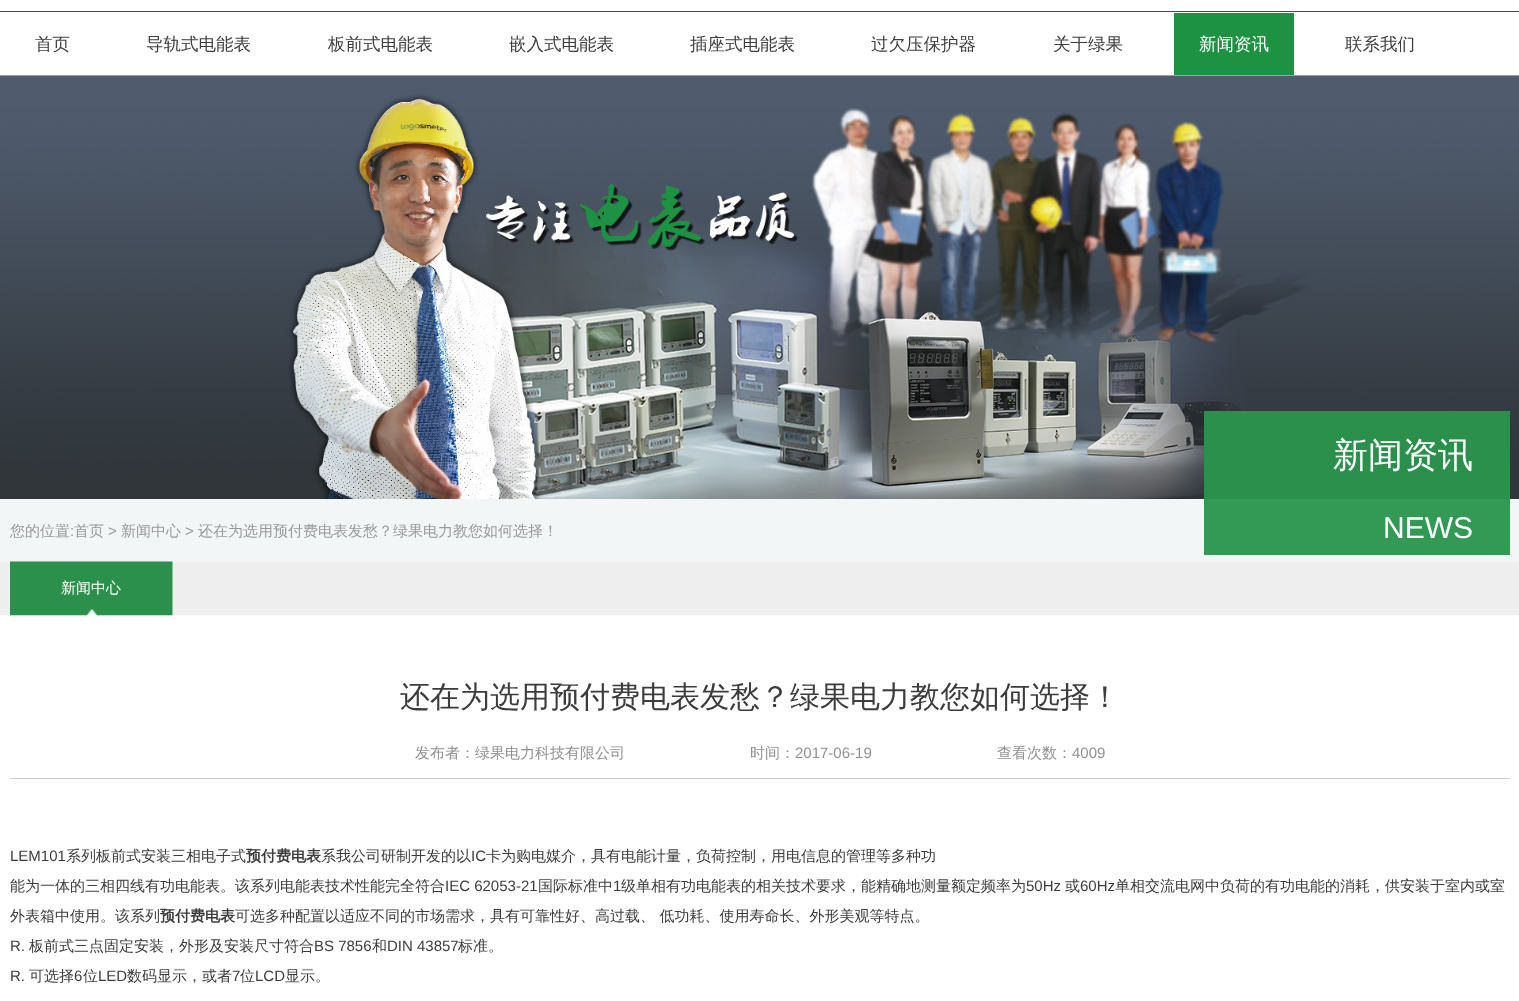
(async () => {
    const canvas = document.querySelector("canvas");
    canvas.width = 1519;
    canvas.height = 1001;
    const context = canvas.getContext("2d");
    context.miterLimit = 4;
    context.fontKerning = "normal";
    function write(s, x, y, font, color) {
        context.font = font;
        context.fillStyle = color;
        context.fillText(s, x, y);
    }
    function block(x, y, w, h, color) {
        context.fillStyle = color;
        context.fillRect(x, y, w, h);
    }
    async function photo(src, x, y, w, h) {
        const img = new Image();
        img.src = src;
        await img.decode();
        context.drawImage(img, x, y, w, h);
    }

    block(0, 0, 1519, 1001, "rgb(255, 255, 255)");
    block(0, 11, 1519, 1, "rgb(74, 71, 69)");
    write("首页", 35, 50, "500 17.5px WenQuanYi Zen Hei", "rgb(60, 60, 60)");
    write("导轨式电能表", 146, 50, "500 17.5px WenQuanYi Zen Hei", "rgb(60, 60, 60)");
    write("板前式电能表", 328, 50, "500 17.5px WenQuanYi Zen Hei", "rgb(60, 60, 60)");
    write("嵌入式电能表", 509, 50, "500 17.5px WenQuanYi Zen Hei", "rgb(60, 60, 60)");
    write("插座式电能表", 690, 50, "500 17.5px WenQuanYi Zen Hei", "rgb(60, 60, 60)");
    write("过欠压保护器", 871, 50, "500 17.5px WenQuanYi Zen Hei", "rgb(60, 60, 60)");
    write("关于绿果", 1053, 50, "500 17.5px WenQuanYi Zen Hei", "rgb(60, 60, 60)");
    block(1174, 13, 120, 62, "rgb(30, 146, 67)");
    write("新闻资讯", 1199, 50, "500 17.5px WenQuanYi Zen Hei", "rgb(255, 255, 255)");
    write("联系我们", 1345, 50, "500 17.5px WenQuanYi Zen Hei", "rgb(60, 60, 60)");
    await photo("media/1.png", 0, 75, 1519, 424);
    await photo("media/2.png", 0, 499, 1519, 117);
    write("您的位置", 10, 536, "500 15px WenQuanYi Zen Hei", "rgb(153, 153, 153)");
    write(":", 70, 536, "15px Liberation Sans", "rgb(153, 153, 153)");
    write("首页", 74, 536, "500 15px WenQuanYi Zen Hei", "rgb(153, 153, 153)");
    write(">", 108, 536, "15px Liberation Sans", "rgb(153, 153, 153)");
    write("新闻中心", 121, 536, "500 15px WenQuanYi Zen Hei", "rgb(153, 153, 153)");
    write(">", 185, 536, "15px Liberation Sans", "rgb(153, 153, 153)");
    write("还在为选用预付费电表发愁？绿果电力教您如何选择！", 198, 536, "500 15px WenQuanYi Zen Hei", "rgb(153, 153, 153)");
    block(1204, 411, 306, 88, "rgb(42, 144, 75)");
    write("新闻资讯", 1333, 467, "500 35px WenQuanYi Zen Hei", "rgb(255, 255, 255)");
    block(1204, 499, 306, 56, "rgb(50, 154, 84)");
    write("NEWS", 1383, 538, "30px Liberation Sans", "rgb(255, 255, 255)");
    await photo("media/3.png", 10, 561, 163, 55);
    write("新闻中心", 61, 593, "500 15px WenQuanYi Zen Hei", "rgb(255, 255, 255)");
    write("还在为选用预付费电表发愁？绿果电力教您如何选择！", 400, 707, "500 30px WenQuanYi Zen Hei", "rgb(60, 60, 60)");
    block(10, 778, 1500, 1, "rgb(204, 204, 204)");
    write("发布者：绿果电力科技有限公司", 415, 758, "500 15px WenQuanYi Zen Hei", "rgb(144, 144, 144)");
    write("时间：", 750, 758, "500 15px WenQuanYi Zen Hei", "rgb(144, 144, 144)");
    write("2017-06-19", 795, 758, "15px Liberation Sans", "rgb(144, 144, 144)");
    write("查看次数：", 997, 758, "500 15px WenQuanYi Zen Hei", "rgb(144, 144, 144)");
    write("4009", 1072, 758, "15px Liberation Sans", "rgb(144, 144, 144)");
    write("LEM101", 10, 861, "15px Liberation Sans", "rgb(60, 60, 60)");
    write("系列板前式安装三相电子式", 66, 861, "500 15px WenQuanYi Zen Hei", "rgb(60, 60, 60)");
    write("预付费电表", 246, 861, "bold 15px WenQuanYi Zen Hei", "rgb(60, 60, 60)");
    write("系我公司研制开发的以", 321, 861, "500 15px WenQuanYi Zen Hei", "rgb(60, 60, 60)");
    write("IC", 471, 861, "15px Liberation Sans", "rgb(60, 60, 60)");
    write("卡为购电媒介，具有电能计量，负荷控制，用电信息的管理等多种功", 486, 861, "500 15px WenQuanYi Zen Hei", "rgb(60, 60, 60)");
    write("能为一体的三相四线有功电能表。该系列电能表技术性能完全符合", 10, 891, "500 15px WenQuanYi Zen Hei", "rgb(60, 60, 60)");
    write("IEC 62053-21", 445, 891, "15px Liberation Sans", "rgb(60, 60, 60)");
    write("国际标准中", 538, 891, "500 15px WenQuanYi Zen Hei", "rgb(60, 60, 60)");
    write("1", 613, 891, "15px Liberation Sans", "rgb(60, 60, 60)");
    write("级单相有功电能表的相关技术要求，能精确地测量额定频率为", 621, 891, "500 15px WenQuanYi Zen Hei", "rgb(60, 60, 60)");
    write("50Hz", 1026, 891, "15px Liberation Sans", "rgb(60, 60, 60)");
    write("或", 1065, 891, "500 15px WenQuanYi Zen Hei", "rgb(60, 60, 60)");
    write("60Hz", 1080, 891, "15px Liberation Sans", "rgb(60, 60, 60)");
    write("单相交流电网中负荷的有功电能的消耗，供安装于室内或室", 1115, 891, "500 15px WenQuanYi Zen Hei", "rgb(60, 60, 60)");
    write("外表箱中使用。该系列", 10, 921, "500 15px WenQuanYi Zen Hei", "rgb(60, 60, 60)");
    write("预付费电表", 160, 921, "bold 15px WenQuanYi Zen Hei", "rgb(60, 60, 60)");
    write("可选多种配置以适应不同的市场需求，具有可靠性好、高过载、 低功耗、使用寿命长、外形美观等特点。", 235, 921, "500 15px WenQuanYi Zen Hei", "rgb(60, 60, 60)");
    write("R.", 10, 951, "15px Liberation Sans", "rgb(60, 60, 60)");
    write("板前式三点固定安装，外形及安装尺寸符合", 29, 951, "500 15px WenQuanYi Zen Hei", "rgb(60, 60, 60)");
    write("BS 7856", 314, 951, "15px Liberation Sans", "rgb(60, 60, 60)");
    write("和", 372, 951, "500 15px WenQuanYi Zen Hei", "rgb(60, 60, 60)");
    write("DIN 43857", 387, 951, "15px Liberation Sans", "rgb(60, 60, 60)");
    write("标准。", 458, 951, "500 15px WenQuanYi Zen Hei", "rgb(60, 60, 60)");
    write("R.", 10, 981, "15px Liberation Sans", "rgb(60, 60, 60)");
    write("可选择", 29, 981, "500 15px WenQuanYi Zen Hei", "rgb(60, 60, 60)");
    write("6", 74, 981, "15px Liberation Sans", "rgb(60, 60, 60)");
    write("位", 83, 981, "500 15px WenQuanYi Zen Hei", "rgb(60, 60, 60)");
    write("LED", 98, 981, "15px Liberation Sans", "rgb(60, 60, 60)");
    write("数码显示，或者", 127, 981, "500 15px WenQuanYi Zen Hei", "rgb(60, 60, 60)");
    write("7", 232, 981, "15px Liberation Sans", "rgb(60, 60, 60)");
    write("位", 240, 981, "500 15px WenQuanYi Zen Hei", "rgb(60, 60, 60)");
    write("LCD", 255, 981, "15px Liberation Sans", "rgb(60, 60, 60)");
    write("显示。", 285, 981, "500 15px WenQuanYi Zen Hei", "rgb(60, 60, 60)");
})();
